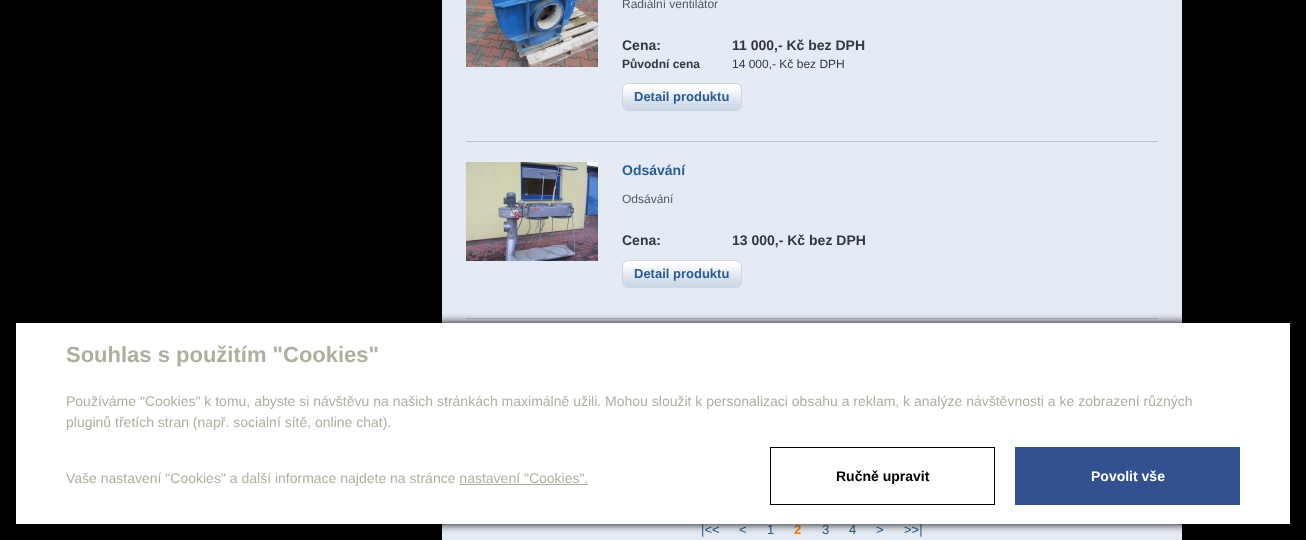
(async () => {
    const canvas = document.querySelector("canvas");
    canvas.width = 1306;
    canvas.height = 540;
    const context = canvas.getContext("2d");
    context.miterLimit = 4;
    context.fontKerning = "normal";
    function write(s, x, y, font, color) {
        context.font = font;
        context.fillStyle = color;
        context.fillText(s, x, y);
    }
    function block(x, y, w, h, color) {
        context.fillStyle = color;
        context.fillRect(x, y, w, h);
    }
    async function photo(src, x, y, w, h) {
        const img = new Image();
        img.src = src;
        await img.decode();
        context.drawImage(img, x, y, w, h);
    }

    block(0, 0, 1306, 540, "rgb(0, 0, 0)");
    block(442, 0, 740, 540, "rgb(229, 235, 244)");
    block(466, 141, 692, 1, "rgb(191, 197, 206)");
    await photo("media/1.png", 466, 0, 132, 67);
    write("Radiální ventilátor", 622, 8, "12px Liberation Sans", "rgb(81, 90, 96)");
    write("Cena:", 622, 50, "bold 14px Liberation Sans", "rgb(51, 55, 63)");
    write("11 000,- Kč bez DPH", 732, 50, "bold 14px Liberation Sans", "rgb(51, 55, 63)");
    write("Původní cena", 622, 68, "bold 12px Liberation Sans", "rgb(51, 55, 63)");
    write("14 000,- Kč bez DPH", 732, 68, "12px Liberation Sans", "rgb(51, 55, 63)");
    await photo("media/2.png", 622, 83, 120, 28);
    write("Detail produktu", 634, 101, "bold 13px Liberation Sans", "rgb(40, 93, 147)");
    block(466, 318, 692, 1, "rgb(191, 197, 206)");
    await photo("media/3.png", 466, 162, 132, 99);
    write("Odsávání", 622, 175, "bold 14px Liberation Sans", "rgb(40, 93, 147)");
    write("Odsávání", 622, 203, "12px Liberation Sans", "rgb(81, 90, 96)");
    write("Cena:", 622, 245, "bold 14px Liberation Sans", "rgb(51, 55, 63)");
    write("13 000,- Kč bez DPH", 732, 245, "bold 14px Liberation Sans", "rgb(51, 55, 63)");
    await photo("media/2.png", 622, 260, 120, 28);
    write("Detail produktu", 634, 278, "bold 13px Liberation Sans", "rgb(40, 93, 147)");
    write("|<<", 701, 534, "13px Liberation Sans", "rgb(40, 93, 147)");
    write("<", 739, 534, "13px Liberation Sans", "rgb(40, 93, 147)");
    write("1", 767, 534, "13px Liberation Sans", "rgb(40, 93, 147)");
    write("2", 794, 534, "bold 13px Liberation Sans", "rgb(251, 123, 0)");
    write("3", 822, 534, "13px Liberation Sans", "rgb(40, 93, 147)");
    write("4", 849, 534, "13px Liberation Sans", "rgb(40, 93, 147)");
    write(">", 876, 534, "13px Liberation Sans", "rgb(40, 93, 147)");
    write(">>|", 904, 534, "13px Liberation Sans", "rgb(40, 93, 147)");
    context.fillStyle = "rgb(0, 0, 0)";
    context.filter = "blur(5px)";
    context.beginPath();
    context.rect(16, 323, 1274, 201);
    context.fill();
    context.filter = "none";
    block(16, 323, 1274, 201, "rgb(255, 255, 255)");
    write("Souhlas s použitím \"Cookies\"", 66, 362, "bold 22px Liberation Sans", "rgb(176, 175, 158)");
    write("Používáme \"Cookies\" k tomu, abyste si návštěvu na našich stránkách maximálně užili. Mohou sloužit k personalizaci obsahu a reklam, k analýze návštěvnosti a ke zobrazení různých", 66, 406, "14px Liberation Sans", "rgb(176, 175, 158)");
    write("pluginů třetích stran (např. socialní sítě, online chat).", 66, 427, "14px Liberation Sans", "rgb(176, 175, 158)");
    write("Vaše nastavení \"Cookies\" a další informace najdete na stránce nastavení \"Cookies\".", 66, 483, "14px Liberation Sans", "rgb(176, 175, 158)");
    block(459, 484, 129, 1, "rgb(176, 175, 158)");
    context.strokeStyle = "rgb(0, 0, 0)";
    context.strokeRect(770.5, 447.5, 224, 57);
    write("Ručně upravit", 836, 481, "bold 14px Liberation Sans", "rgb(0, 0, 0)");
    block(1015, 447, 225, 58, "rgb(51, 81, 145)");
    write("Povolit vše", 1091, 481, "bold 14px Liberation Sans", "rgb(255, 255, 255)");
})();
